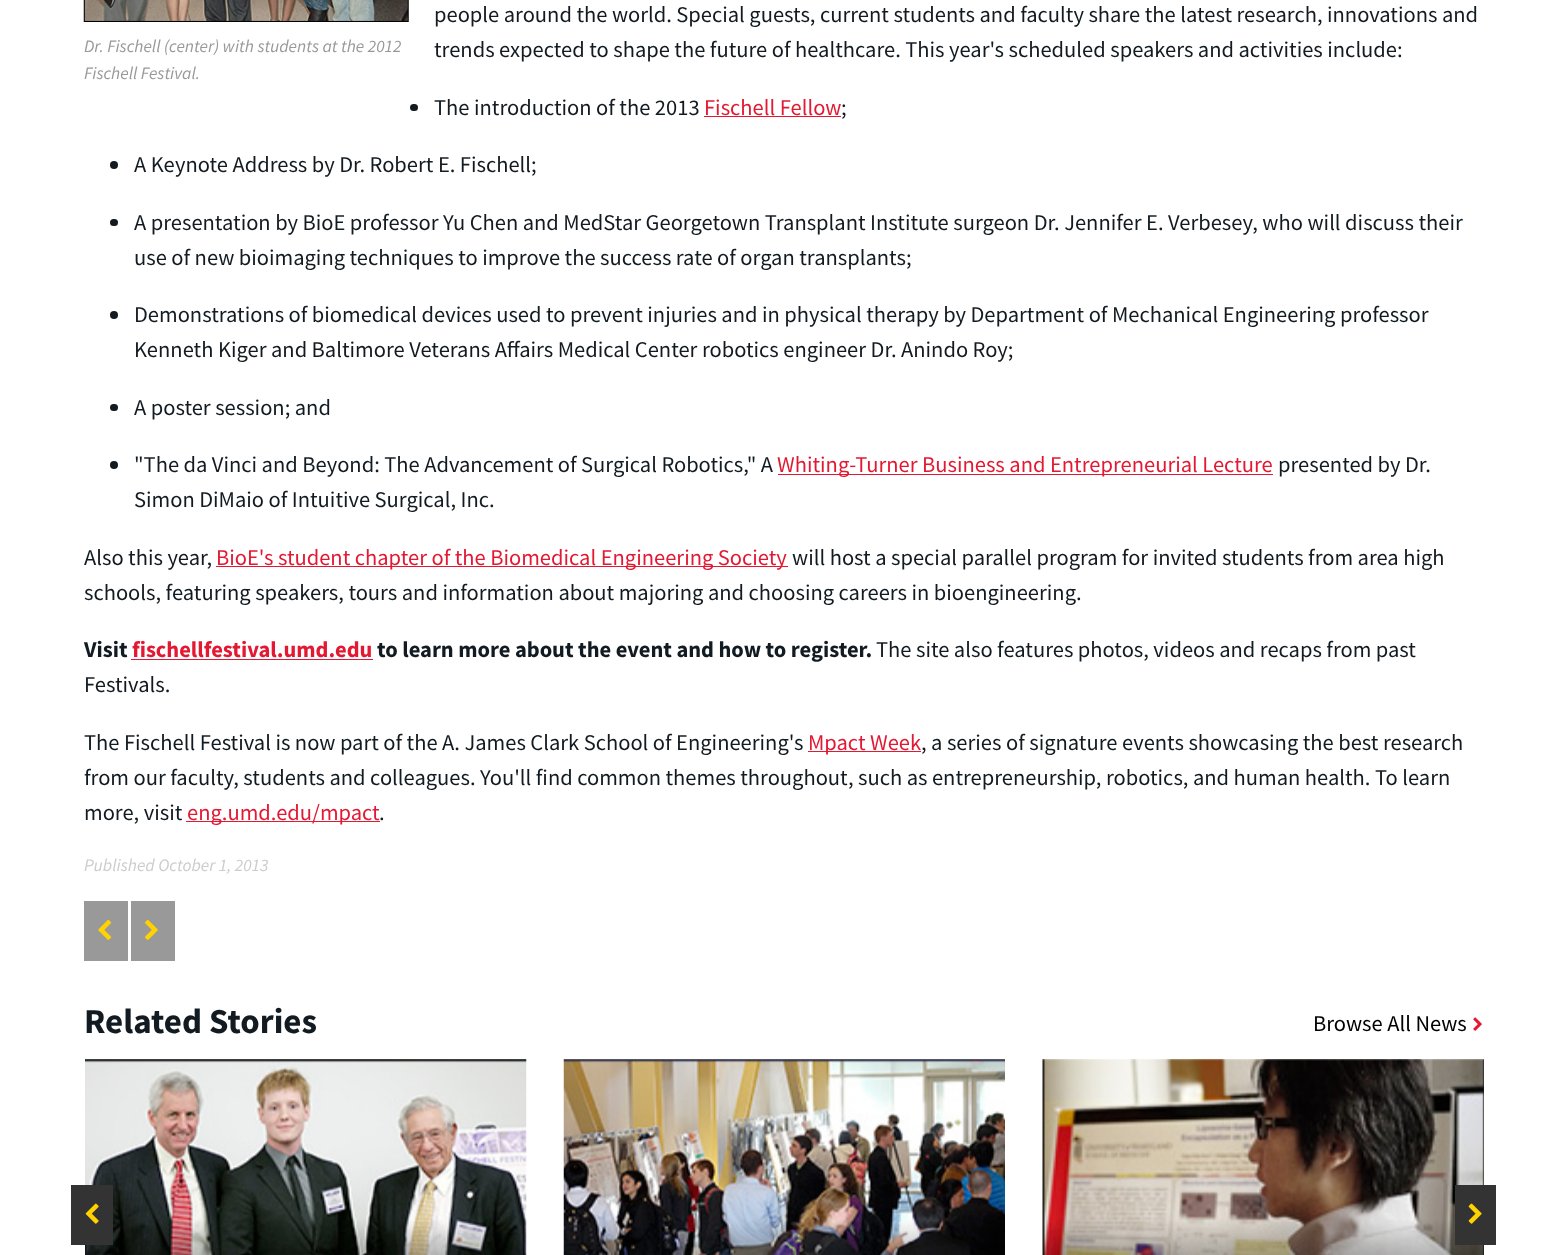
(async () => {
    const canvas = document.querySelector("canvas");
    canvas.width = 1567;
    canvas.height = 1255;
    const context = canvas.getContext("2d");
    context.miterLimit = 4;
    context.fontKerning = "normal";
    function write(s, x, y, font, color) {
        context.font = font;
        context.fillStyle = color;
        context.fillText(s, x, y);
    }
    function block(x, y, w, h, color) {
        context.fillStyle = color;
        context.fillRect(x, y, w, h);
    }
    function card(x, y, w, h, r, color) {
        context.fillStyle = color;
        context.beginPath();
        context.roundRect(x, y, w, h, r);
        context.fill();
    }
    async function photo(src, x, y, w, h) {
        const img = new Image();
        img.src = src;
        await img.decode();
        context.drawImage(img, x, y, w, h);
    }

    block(0, 0, 1567, 1255, "rgb(255, 255, 255)");
    await photo("media/1.png", 83, 0, 326, 22);
    write("Dr. Fischell (center) with students at the 2012", 84, 52, "italic 17.5px Source Sans Pro", "rgb(153, 153, 153)");
    write("Fischell Festival.", 84, 79, "italic 17.5px Source Sans Pro", "rgb(153, 153, 153)");
    write("people around the world. Special guests, current students and faculty share the latest research, innovations and", 434, 22, "22.5px Source Sans Pro", "rgb(18, 27, 33)");
    write("trends expected to shape the future of healthcare. This year's scheduled speakers and activities include:", 434, 57, "22.5px Source Sans Pro", "rgb(18, 27, 33)");
    card(410, 104, 8, 7, 3.5, "rgb(18, 27, 33)");
    write("The introduction of the 2013", 434, 115, "22.5px Source Sans Pro", "rgb(18, 27, 33)");
    write("Fischell Fellow", 704, 115, "22.5px Source Sans Pro", "rgb(227, 25, 51)");
    block(704, 116, 137, 1, "rgb(227, 25, 51)");
    write(";", 841, 115, "22.5px Source Sans Pro", "rgb(18, 27, 33)");
    context.beginPath();
    context.arc(114, 165, 4, 0, Math.PI * 2);
    context.fill();
    write("A Keynote Address by Dr. Robert E. Fischell;", 134, 172, "22.5px Source Sans Pro", "rgb(18, 27, 33)");
    card(110, 219, 8, 7, 3.5, "rgb(18, 27, 33)");
    write("A presentation by BioE professor Yu Chen and MedStar Georgetown Transplant Institute surgeon Dr. Jennifer E. Verbesey, who will discuss their", 134, 230, "22.5px Source Sans Pro", "rgb(18, 27, 33)");
    write("use of new bioimaging techniques to improve the success rate of organ transplants;", 134, 265, "22.5px Source Sans Pro", "rgb(18, 27, 33)");
    context.beginPath();
    context.arc(114, 315, 4, 0, Math.PI * 2);
    context.fill();
    write("Demonstrations of biomedical devices used to prevent injuries and in physical therapy by Department of Mechanical Engineering professor", 134, 322, "22.5px Source Sans Pro", "rgb(18, 27, 33)");
    write("Kenneth Kiger and Baltimore Veterans Affairs Medical Center robotics engineer Dr. Anindo Roy;", 134, 357, "22.5px Source Sans Pro", "rgb(18, 27, 33)");
    card(110, 404, 8, 7, 3.5, "rgb(18, 27, 33)");
    write("A poster session; and", 134, 415, "22.5px Source Sans Pro", "rgb(18, 27, 33)");
    context.beginPath();
    context.arc(114, 465, 4, 0, Math.PI * 2);
    context.fill();
    write("\"The da Vinci and Beyond: The Advancement of Surgical Robotics,\" A", 134, 472, "22.5px Source Sans Pro", "rgb(18, 27, 33)");
    block(778, 474, 495, 1, "rgb(227, 25, 51)");
    write("Whiting-Turner Business and Entrepreneurial Lecture", 777, 472, "22.5px Source Sans Pro", "rgb(227, 25, 51)");
    write("presented by Dr.", 1278, 472, "22.5px Source Sans Pro", "rgb(18, 27, 33)");
    write("Simon DiMaio of Intuitive Surgical, Inc.", 134, 507, "22.5px Source Sans Pro", "rgb(18, 27, 33)");
    write("Also this year,", 84, 565, "22.5px Source Sans Pro", "rgb(18, 27, 33)");
    block(216, 566, 572, 1, "rgb(227, 25, 51)");
    write("BioE's student chapter of the Biomedical Engineering Society", 216, 565, "22.5px Source Sans Pro", "rgb(227, 25, 51)");
    write("will host a special parallel program for invited students from area high", 792, 565, "22.5px Source Sans Pro", "rgb(18, 27, 33)");
    write("schools, featuring speakers, tours and information about majoring and choosing careers in bioengineering.", 84, 600, "22.5px Source Sans Pro", "rgb(18, 27, 33)");
    write("Visit", 84, 657, "bold 22.5px Source Sans Pro", "rgb(18, 27, 33)");
    write("fischellfestival.umd.edu", 132, 657, "bold 22.5px Source Sans Pro", "rgb(227, 25, 51)");
    block(131, 659, 242, 1, "rgb(227, 25, 51)");
    write("to learn more about the event and how to register.", 377, 657, "bold 22.5px Source Sans Pro", "rgb(18, 27, 33)");
    write("The site also features photos, videos and recaps from past", 876, 657, "22.5px Source Sans Pro", "rgb(18, 27, 33)");
    write("Festivals.", 84, 692, "22.5px Source Sans Pro", "rgb(18, 27, 33)");
    write("The Fischell Festival is now part of the A. James Clark School of Engineering's", 84, 750, "22.5px Source Sans Pro", "rgb(18, 27, 33)");
    block(808, 751, 113, 1, "rgb(227, 25, 51)");
    write("Mpact Week", 808, 750, "22.5px Source Sans Pro", "rgb(227, 25, 51)");
    write(", a series of signature events showcasing the best research", 921, 750, "22.5px Source Sans Pro", "rgb(18, 27, 33)");
    write("from our faculty, students and colleagues. You'll find common themes throughout, such as entrepreneurship, robotics, and human health. To learn", 84, 785, "22.5px Source Sans Pro", "rgb(18, 27, 33)");
    write("more, visit", 84, 820, "22.5px Source Sans Pro", "rgb(18, 27, 33)");
    block(186, 821, 194, 1, "rgb(227, 25, 51)");
    write("eng.umd.edu/mpact", 187, 820, "22.5px Source Sans Pro", "rgb(227, 25, 51)");
    write(".", 379, 820, "22.5px Source Sans Pro", "rgb(18, 27, 33)");
    write("Published October 1, 2013", 84, 871, "italic 17.5px Source Sans Pro", "rgb(204, 204, 204)");
    block(84, 901, 44, 60, "rgb(153, 153, 153)");
    await photo("media/2.png", 98, 919, 14, 21);
    block(131, 901, 44, 60, "rgb(153, 153, 153)");
    await photo("media/3.png", 144, 919, 14, 21);
    write("Related Stories", 84, 1033, "bold 35px Source Sans Pro", "rgb(18, 27, 33)");
    write("Browse All News", 1313, 1031, "22.5px Source Sans Pro", "rgb(0, 0, 0)");
    await photo("media/4.png", 1473, 1017, 9, 14);
    await photo("media/5.png", 85, 1059, 442, 196);
    await photo("media/6.png", 563, 1059, 442, 196);
    await photo("media/7.png", 1042, 1059, 442, 196);
    block(71, 1185, 42, 60, "rgb(51, 51, 51)");
    await photo("media/8.png", 85, 1203, 14, 21);
    block(1455, 1185, 41, 60, "rgb(51, 51, 51)");
    await photo("media/9.png", 1468, 1203, 14, 21);
})();
